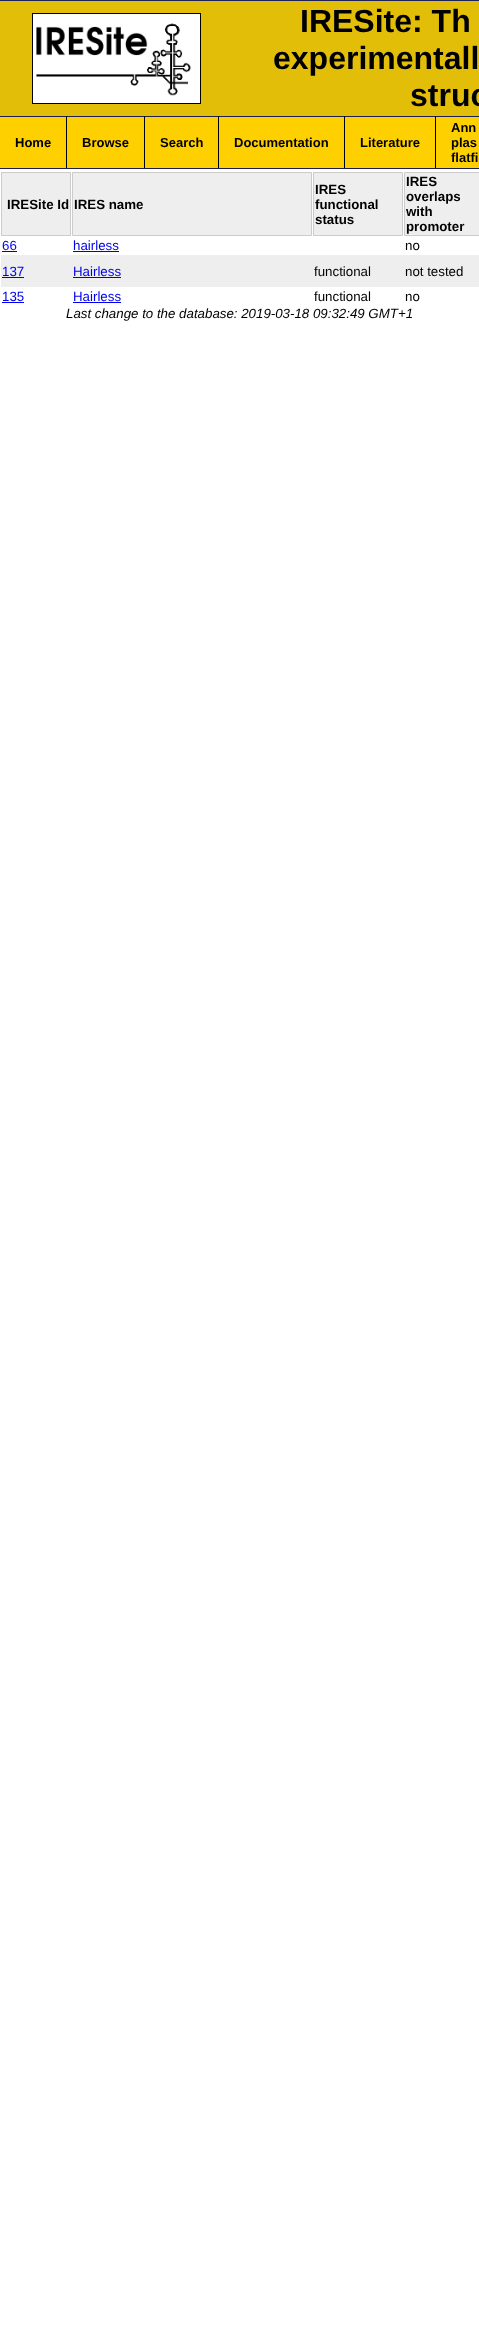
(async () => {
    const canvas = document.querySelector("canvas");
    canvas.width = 479;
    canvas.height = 2326;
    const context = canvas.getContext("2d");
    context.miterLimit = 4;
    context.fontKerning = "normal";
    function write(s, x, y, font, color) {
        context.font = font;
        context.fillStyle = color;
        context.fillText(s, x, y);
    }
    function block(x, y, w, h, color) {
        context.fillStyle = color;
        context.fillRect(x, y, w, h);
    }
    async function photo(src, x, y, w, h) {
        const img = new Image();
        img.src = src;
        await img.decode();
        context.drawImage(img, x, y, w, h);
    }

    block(0, 0, 479, 2326, "rgb(255, 255, 255)");
    block(0, 1, 479, 115, "rgb(226, 190, 9)");
    block(0, 0, 479, 1, "rgb(28, 33, 86)");
    context.strokeStyle = "rgb(0, 0, 0)";
    context.strokeRect(32.5, 13.5, 168, 90);
    await photo("media/1.png", 33, 14, 167, 89);
    write("IRESite: Th", 300, 32, "bold 32px Liberation Sans", "rgb(0, 0, 0)");
    write("experimentall", 273, 69, "bold 32px Liberation Sans", "rgb(0, 0, 0)");
    write("struc", 410, 106, "bold 32px Liberation Sans", "rgb(0, 0, 0)");
    block(0, 117, 66, 51, "rgb(255, 208, 0)");
    block(0, 116, 479, 1, "rgb(28, 33, 86)");
    block(66, 116, 1, 53, "rgb(0, 0, 0)");
    block(0, 168, 67, 1, "rgb(28, 33, 86)");
    write("Home", 15, 147, "bold 13px Liberation Sans", "rgb(0, 0, 0)");
    block(67, 117, 77, 51, "rgb(255, 208, 0)");
    block(144, 116, 1, 53, "rgb(0, 0, 0)");
    block(67, 168, 78, 1, "rgb(28, 33, 86)");
    write("Browse", 82, 147, "bold 13px Liberation Sans", "rgb(0, 0, 0)");
    block(145, 117, 73, 51, "rgb(255, 208, 0)");
    block(218, 116, 1, 53, "rgb(0, 0, 0)");
    block(145, 168, 74, 1, "rgb(28, 33, 86)");
    write("Search", 160, 147, "bold 13px Liberation Sans", "rgb(0, 0, 0)");
    block(219, 117, 125, 51, "rgb(255, 208, 0)");
    block(344, 116, 1, 53, "rgb(0, 0, 0)");
    block(219, 168, 126, 1, "rgb(28, 33, 86)");
    write("Documentation", 234, 147, "bold 13px Liberation Sans", "rgb(0, 0, 0)");
    block(345, 117, 90, 51, "rgb(255, 208, 0)");
    block(435, 116, 1, 53, "rgb(0, 0, 0)");
    block(345, 168, 134, 1, "rgb(28, 33, 86)");
    write("Literature", 360, 147, "bold 13px Liberation Sans", "rgb(0, 0, 0)");
    block(436, 117, 43, 51, "rgb(255, 208, 0)");
    write("Ann", 451, 132, "bold 13px Liberation Sans", "rgb(0, 0, 0)");
    write("plas", 451, 147, "bold 13px Liberation Sans", "rgb(0, 0, 0)");
    write("flatfi", 451, 162, "bold 13px Liberation Sans", "rgb(0, 0, 0)");
    context.fillStyle = "rgb(238, 238, 238)";
    context.beginPath();
    context.rect(1.5, 172.5, 69, 63);
    context.fill();
    context.strokeStyle = "rgb(204, 204, 204)";
    context.stroke();
    write("IRESite Id", 7, 209, "bold 13.3px Liberation Sans", "rgb(0, 0, 0)");
    context.fillStyle = "rgb(238, 238, 238)";
    context.beginPath();
    context.rect(72.5, 172.5, 239, 63);
    context.fill();
    context.stroke();
    write("IRES name", 74, 209, "bold 13.3px Liberation Sans", "rgb(0, 0, 0)");
    context.fillStyle = "rgb(238, 238, 238)";
    context.beginPath();
    context.rect(313.5, 172.5, 89, 63);
    context.fill();
    context.stroke();
    write("IRES", 315, 194, "bold 13.3px Liberation Sans", "rgb(0, 0, 0)");
    write("functional", 315, 209, "bold 13.3px Liberation Sans", "rgb(0, 0, 0)");
    write("status", 315, 224, "bold 13.3px Liberation Sans", "rgb(0, 0, 0)");
    context.fillStyle = "rgb(238, 238, 238)";
    context.beginPath();
    context.rect(404.5, 172.5, 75, 63);
    context.fill();
    context.stroke();
    write("IRES", 406, 186, "bold 13.3px Liberation Sans", "rgb(0, 0, 0)");
    write("overlaps", 406, 201, "bold 13.3px Liberation Sans", "rgb(0, 0, 0)");
    write("with", 406, 216, "bold 13.3px Liberation Sans", "rgb(0, 0, 0)");
    write("promoter", 406, 231, "bold 13.3px Liberation Sans", "rgb(0, 0, 0)");
    write("66", 2, 250, "13.3px Liberation Sans", "rgb(0, 0, 238)");
    block(2, 251, 15, 1, "rgb(0, 0, 238)");
    write("hairless", 73, 250, "13.3px Liberation Sans", "rgb(0, 0, 238)");
    block(73, 251, 46, 1, "rgb(0, 0, 238)");
    write("no", 405, 250, "13.3px Liberation Sans", "rgb(0, 0, 0)");
    block(1, 255, 478, 32, "rgb(238, 238, 238)");
    write("137", 2, 276, "13.3px Liberation Sans", "rgb(0, 0, 238)");
    block(2, 277, 22, 1, "rgb(0, 0, 238)");
    write("Hairless", 73, 276, "13.3px Liberation Sans", "rgb(0, 0, 238)");
    block(73, 277, 48, 1, "rgb(0, 0, 238)");
    write("functional", 314, 276, "13.3px Liberation Sans", "rgb(0, 0, 0)");
    write("not tested", 405, 276, "13.3px Liberation Sans", "rgb(0, 0, 0)");
    write("135", 2, 301, "13.3px Liberation Sans", "rgb(0, 0, 238)");
    block(2, 302, 22, 1, "rgb(0, 0, 238)");
    write("Hairless", 73, 301, "13.3px Liberation Sans", "rgb(0, 0, 238)");
    block(73, 302, 48, 1, "rgb(0, 0, 238)");
    write("functional", 314, 301, "13.3px Liberation Sans", "rgb(0, 0, 0)");
    write("no", 405, 301, "13.3px Liberation Sans", "rgb(0, 0, 0)");
    write("Last change to the database: 2019-03-18 09:32:49 GMT+1", 66, 318, "italic 13.3px Liberation Sans", "rgb(0, 0, 0)");
})();
